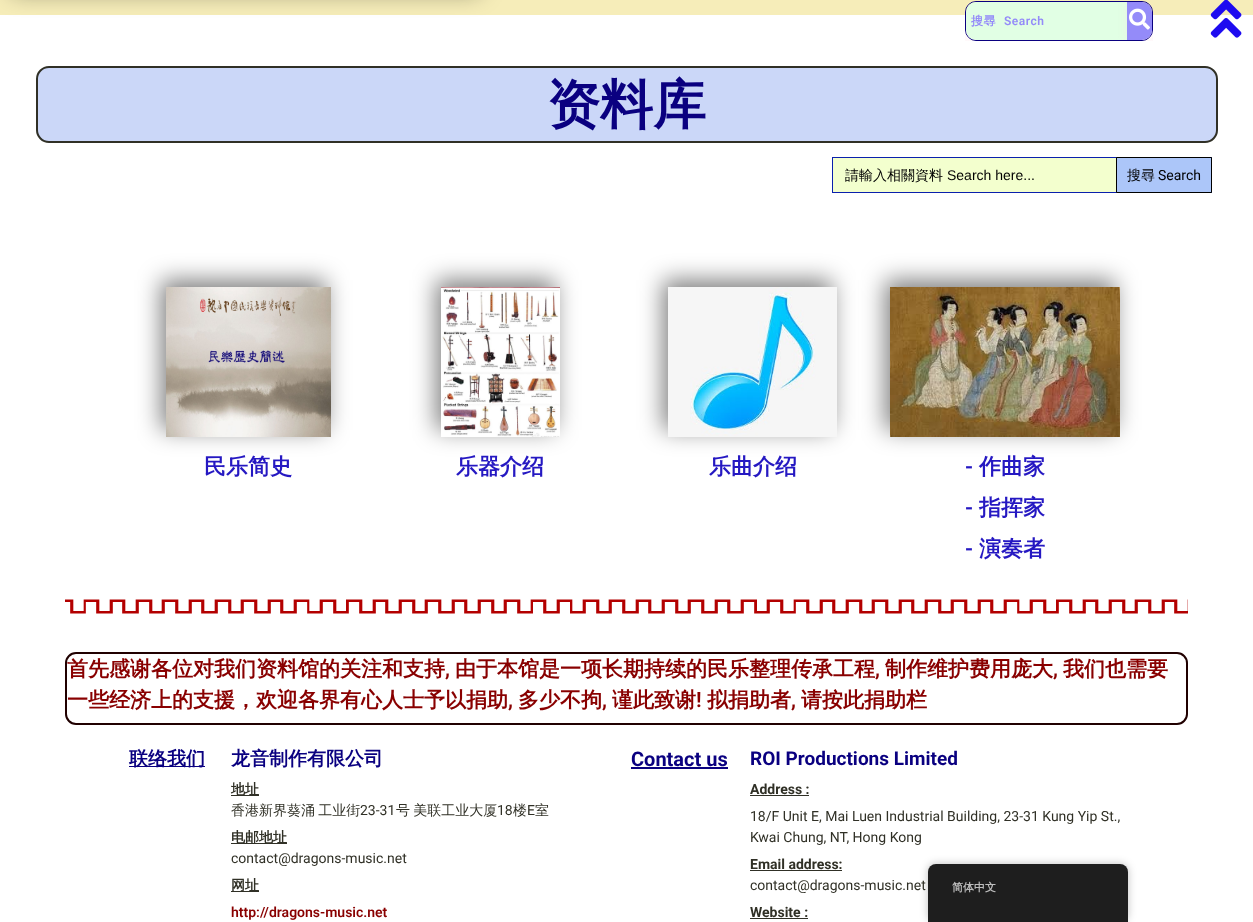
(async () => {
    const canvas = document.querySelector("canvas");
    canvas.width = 1253;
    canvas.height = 922;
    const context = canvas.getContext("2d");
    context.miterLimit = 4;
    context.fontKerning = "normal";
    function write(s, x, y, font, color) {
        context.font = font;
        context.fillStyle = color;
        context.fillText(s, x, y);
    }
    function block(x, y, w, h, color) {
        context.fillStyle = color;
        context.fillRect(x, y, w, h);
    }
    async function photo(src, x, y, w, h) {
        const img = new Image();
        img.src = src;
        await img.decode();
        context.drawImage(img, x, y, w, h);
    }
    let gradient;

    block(0, 0, 1253, 922, "rgb(255, 255, 255)");
    block(0, 0, 1253, 15, "rgb(246, 237, 185)");
    context.fillStyle = "rgba(7, 7, 6, 0.5)";
    context.filter = "blur(11.5px)";
    context.beginPath();
    context.rect(12, -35, 467, 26);
    context.fill();
    context.filter = "none";
    gradient = context.createLinearGradient(1059, 1, 1059, 41);
    gradient.addColorStop(0, "rgba(242, 41, 91, 0)");
    gradient.addColorStop(1, "rgba(242, 41, 91, 0.03)");
    context.fillStyle = gradient;
    context.fillRect(965, 30, 188, 11);
    context.beginPath();
    context.roundRect(965.5, 1.5, 187, 39, 10.5);
    context.strokeStyle = "rgb(10, 0, 128)";
    context.stroke();
    context.fillStyle = "rgb(225, 255, 228)";
    context.beginPath();
    context.roundRect(966, 2, 161, 38, [10, 0, 0, 10]);
    context.fill();
    context.letterSpacing = "0.5px";
    write("搜尋", 971, 25, "bold 12px WenQuanYi Zen Hei", "rgb(148, 139, 249)");
    write("Search", 1004, 25, "600 12px Roboto", "rgb(148, 139, 249)");
    context.save();
    context.beginPath();
    context.roundRect(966, 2, 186, 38, 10);
    context.clip();
    context.fillStyle = "rgba(240, 228, 228, 0.5)";
    context.filter = "blur(5px)";
    context.beginPath();
    context.rect(1127, 2, 25, 38);
    context.fill();
    context.filter = "none";
    context.restore();
    context.beginPath();
    context.roundRect(1127, 2, 25, 38, [0, 10, 10, 0]);
    context.fill();
    await photo("media/1.png", 1129, 8, 21, 22);
    await photo("media/2.png", 1210, 0, 32, 38);
    context.fillStyle = "rgb(203, 215, 248)";
    context.beginPath();
    context.roundRect(37, 67, 1180, 75, 12);
    context.fill();
    context.strokeStyle = "rgb(48, 48, 38)";
    context.lineWidth = 2;
    context.stroke();
    context.letterSpacing = "0px";
    write("资料库", 547, 123, "bold 53px WenQuanYi Zen Hei", "rgb(10, 0, 128)");
    block(833, 158, 283, 34, "rgb(243, 255, 206)");
    context.strokeStyle = "rgb(10, 32, 173)";
    context.lineWidth = 1;
    context.strokeRect(832.5, 157.5, 379, 35);
    write("請輸入相關資料", 845, 180, "500 14px WenQuanYi Zen Hei", "rgb(0, 0, 0)");
    write("Search here...", 947, 180, "14px Liberation Sans", "rgb(0, 0, 0)");
    context.fillStyle = "rgb(172, 198, 249)";
    context.beginPath();
    context.rect(1116.5, 157.5, 95, 35);
    context.fill();
    context.strokeStyle = "rgb(0, 0, 0)";
    context.stroke();
    write("搜尋", 1127, 180, "500 14px WenQuanYi Zen Hei", "rgb(0, 0, 0)");
    write("Search", 1158, 180, "14px Roboto", "rgb(0, 0, 0)");
    context.fillStyle = "rgba(0, 0, 0, 0.5)";
    context.filter = "blur(11.5px)";
    context.beginPath();
    context.rect(161, 280, 165, 150);
    context.fill();
    context.filter = "none";
    await photo("media/3.png", 166, 287, 165, 150);
    write("民乐简史", 204, 474, "bold 22px WenQuanYi Zen Hei", "rgb(37, 24, 194)");
    context.fillStyle = "rgba(0, 0, 0, 0.5)";
    context.filter = "blur(11.5px)";
    context.beginPath();
    context.rect(436, 280, 119, 150);
    context.fill();
    context.filter = "none";
    await photo("media/4.png", 441, 287, 119, 150);
    write("乐器介绍", 456, 474, "bold 22px WenQuanYi Zen Hei", "rgb(37, 24, 194)");
    context.fillStyle = "rgba(0, 0, 0, 0.5)";
    context.filter = "blur(11.5px)";
    context.beginPath();
    context.rect(663, 280, 169, 150);
    context.fill();
    context.filter = "none";
    await photo("media/5.png", 668, 287, 169, 150);
    write("乐曲介绍", 709, 474, "bold 22px WenQuanYi Zen Hei", "rgb(37, 24, 194)");
    context.fillStyle = "rgba(0, 0, 0, 0.5)";
    context.filter = "blur(11.5px)";
    context.beginPath();
    context.rect(885, 280, 230, 150);
    context.fill();
    context.filter = "none";
    await photo("media/6.png", 890, 287, 230, 150);
    write("-", 965, 474, "600 22px Roboto", "rgb(37, 24, 194)");
    write("作曲家", 979, 474, "bold 22px WenQuanYi Zen Hei", "rgb(37, 24, 194)");
    write("-", 965, 515, "600 22px Roboto", "rgb(37, 24, 194)");
    write("指挥家", 979, 515, "bold 22px WenQuanYi Zen Hei", "rgb(37, 24, 194)");
    write("-", 965, 556, "600 22px Roboto", "rgb(37, 24, 194)");
    write("演奏者", 979, 556, "bold 22px WenQuanYi Zen Hei", "rgb(37, 24, 194)");
    await photo("media/7.png", 65, 599, 1123, 15);
    context.beginPath();
    context.roundRect(66, 653, 1121, 71, 10);
    context.strokeStyle = "rgb(32, 0, 0)";
    context.lineWidth = 2;
    context.stroke();
    write("首先感谢各位对我们资料馆的关注和支持", 67, 676, "bold 21px WenQuanYi Zen Hei", "rgb(137, 0, 0)");
    write(",", 445, 676, "600 21px Roboto", "rgb(137, 0, 0)");
    write("由于本馆是一项长期持续的民乐整理传承工程", 455, 676, "bold 21px WenQuanYi Zen Hei", "rgb(137, 0, 0)");
    write(",", 875, 676, "600 21px Roboto", "rgb(137, 0, 0)");
    write("制作维护费用庞大", 885, 676, "bold 21px WenQuanYi Zen Hei", "rgb(137, 0, 0)");
    write(",", 1053, 676, "600 21px Roboto", "rgb(137, 0, 0)");
    write("我们也需要", 1063, 676, "bold 21px WenQuanYi Zen Hei", "rgb(137, 0, 0)");
    write("一些经济上的支援，欢迎各界有心人士予以捐助", 67, 707, "bold 21px WenQuanYi Zen Hei", "rgb(137, 0, 0)");
    write(",", 508, 707, "600 21px Roboto", "rgb(137, 0, 0)");
    write("多少不拘", 518, 707, "bold 21px WenQuanYi Zen Hei", "rgb(137, 0, 0)");
    write(",", 602, 707, "600 21px Roboto", "rgb(137, 0, 0)");
    write("谨此致谢", 612, 707, "bold 21px WenQuanYi Zen Hei", "rgb(137, 0, 0)");
    write("!", 696, 707, "600 21px Roboto", "rgb(137, 0, 0)");
    write("拟捐助者", 707, 707, "bold 21px WenQuanYi Zen Hei", "rgb(137, 0, 0)");
    write(",", 791, 707, "600 21px Roboto", "rgb(137, 0, 0)");
    write("请按此捐助栏", 801, 707, "bold 21px WenQuanYi Zen Hei", "rgb(137, 0, 0)");
    block(129, 766, 76, 1, "rgb(10, 0, 128)");
    write("联络我们", 129, 765, "bold 19px WenQuanYi Zen Hei", "rgb(10, 0, 128)");
    write("龙音制作有限公司", 231, 765, "bold 19px WenQuanYi Zen Hei", "rgb(10, 0, 128)");
    block(231, 795, 28, 1, "rgb(48, 48, 38)");
    write("地址", 231, 794, "bold 14px WenQuanYi Zen Hei", "rgb(48, 48, 38)");
    context.wordSpacing = "-1px";
    write("香港新界葵涌 工业街", 231, 815, "500 14px WenQuanYi Zen Hei", "rgb(48, 48, 38)");
    context.wordSpacing = "0px";
    write("23-31", 360, 815, "14px Roboto", "rgb(48, 48, 38)");
    context.wordSpacing = "-1px";
    write("号 美联工业大厦", 396, 815, "500 14px WenQuanYi Zen Hei", "rgb(48, 48, 38)");
    context.wordSpacing = "0px";
    write("18", 497, 815, "14px Roboto", "rgb(48, 48, 38)");
    write("楼", 513, 815, "500 14px WenQuanYi Zen Hei", "rgb(48, 48, 38)");
    write("E", 527, 815, "14px Roboto", "rgb(48, 48, 38)");
    write("室", 535, 815, "500 14px WenQuanYi Zen Hei", "rgb(48, 48, 38)");
    block(231, 843, 56, 1, "rgb(48, 48, 38)");
    write("电邮地址", 231, 842, "bold 14px WenQuanYi Zen Hei", "rgb(48, 48, 38)");
    write("contact@dragons-music.net", 231, 863, "14px Roboto", "rgb(48, 48, 38)");
    block(231, 891, 28, 1, "rgb(48, 48, 38)");
    write("网址", 231, 890, "bold 14px WenQuanYi Zen Hei", "rgb(48, 48, 38)");
    write("http://dragons-music.net", 231, 917, "600 14px Roboto", "rgb(137, 0, 0)");
    write("Contact us", 631, 766, "bold 20px Roboto", "rgb(10, 0, 128)");
    block(631, 767, 97, 2, "rgb(10, 0, 128)");
    write("ROI Productions Limited", 750, 765, "bold 19px Roboto", "rgb(10, 0, 128)");
    write("Address :", 750, 794, "bold 14px Roboto", "rgb(48, 48, 38)");
    block(750, 795, 59, 1, "rgb(48, 48, 38)");
    write("18/F Unit E, Mai Luen Industrial Building, 23-31 Kung Yip St.,", 750, 821, "14px Roboto", "rgb(48, 48, 38)");
    write("Kwai Chung, NT, Hong Kong", 750, 842, "14px Roboto", "rgb(48, 48, 38)");
    write("Email address:", 750, 869, "bold 14px Roboto", "rgb(48, 48, 38)");
    block(750, 870, 92, 1, "rgb(48, 48, 38)");
    write("contact@dragons-music.net", 750, 890, "14px Roboto", "rgb(48, 48, 38)");
    write("Website :", 750, 917, "bold 14px Roboto", "rgb(48, 48, 38)");
    block(750, 918, 58, 1, "rgb(48, 48, 38)");
    context.fillStyle = "rgba(0, 0, 0, 0.25)";
    context.filter = "blur(4px)";
    context.beginPath();
    context.roundRect(928, 864, 200, 58, 8);
    context.fill();
    context.filter = "none";
    context.fillStyle = "rgb(30, 30, 30)";
    context.beginPath();
    context.roundRect(928, 864, 200, 58, [8, 8, 0, 0]);
    context.fill();
    write("简体中文", 952, 891, "bold 11px WenQuanYi Zen Hei", "rgb(189, 189, 189)");
})();
